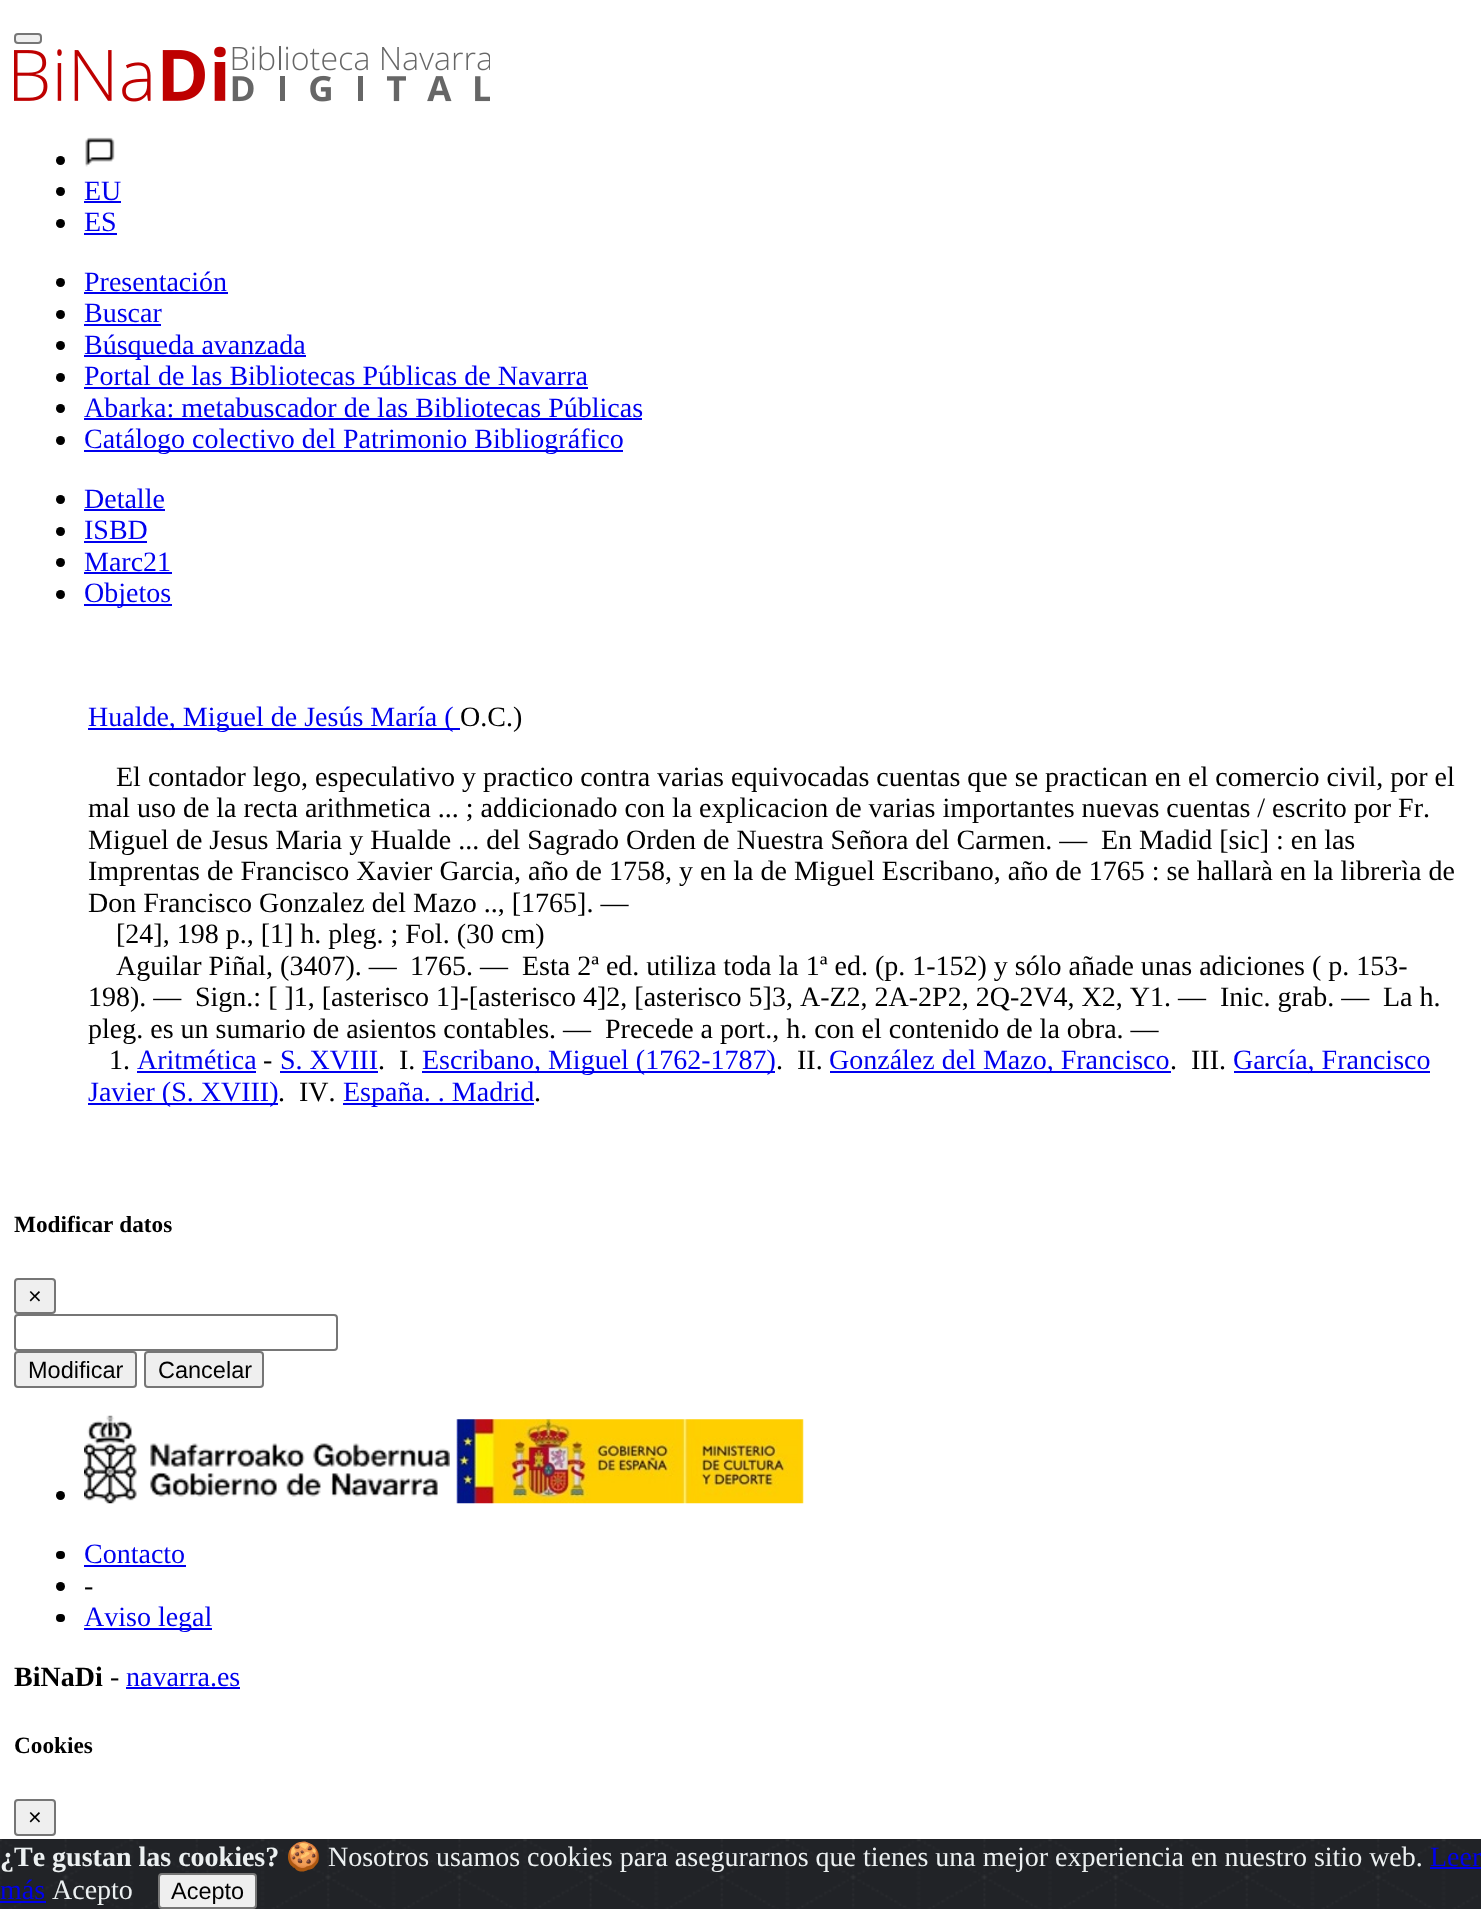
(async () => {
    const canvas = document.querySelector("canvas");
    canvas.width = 1481;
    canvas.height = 1909;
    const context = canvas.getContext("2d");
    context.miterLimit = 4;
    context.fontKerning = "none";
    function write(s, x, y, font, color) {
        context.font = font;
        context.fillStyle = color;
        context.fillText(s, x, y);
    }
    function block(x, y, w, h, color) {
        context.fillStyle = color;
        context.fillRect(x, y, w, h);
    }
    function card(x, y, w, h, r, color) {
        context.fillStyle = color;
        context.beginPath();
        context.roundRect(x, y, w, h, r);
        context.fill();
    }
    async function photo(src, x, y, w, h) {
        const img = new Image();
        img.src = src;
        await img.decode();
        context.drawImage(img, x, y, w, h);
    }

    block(0, 0, 1481, 1909, "rgb(255, 255, 255)");
    context.fillStyle = "rgb(239, 239, 239)";
    context.beginPath();
    context.roundRect(15, 34, 26, 9, 3);
    context.fill();
    context.strokeStyle = "rgb(118, 118, 118)";
    context.lineWidth = 2;
    context.stroke();
    await photo("media/1.png", 14, 46, 476, 56);
    context.fillStyle = "rgb(0, 0, 0)";
    context.beginPath();
    context.arc(60.5, 160.5, 4.5, 0, Math.PI * 2);
    context.fill();
    await photo("media/2.png", 85, 137, 30, 30);
    context.beginPath();
    context.arc(60.5, 191.5, 4.5, 0, Math.PI * 2);
    context.fill();
    write("EU", 84, 200, "28px Liberation Serif", "rgb(0, 0, 238)");
    block(84, 201, 37, 2, "rgb(0, 0, 238)");
    context.fillStyle = "rgb(0, 0, 0)";
    context.beginPath();
    context.arc(60.5, 223.5, 4.5, 0, Math.PI * 2);
    context.fill();
    write("ES", 84, 231, "28px Liberation Serif", "rgb(0, 0, 238)");
    block(84, 233, 33, 2, "rgb(0, 0, 238)");
    context.fillStyle = "rgb(0, 0, 0)";
    context.beginPath();
    context.arc(60.5, 282.5, 4.5, 0, Math.PI * 2);
    context.fill();
    write("Presentación", 84, 291, "28px Liberation Serif", "rgb(0, 0, 238)");
    block(84, 292, 144, 2, "rgb(0, 0, 238)");
    context.fillStyle = "rgb(0, 0, 0)";
    context.beginPath();
    context.arc(60.5, 314.5, 4.5, 0, Math.PI * 2);
    context.fill();
    write("Buscar", 84, 322, "28px Liberation Serif", "rgb(0, 0, 238)");
    block(84, 324, 77, 2, "rgb(0, 0, 238)");
    context.fillStyle = "rgb(0, 0, 0)";
    context.beginPath();
    context.arc(60.5, 345.5, 4.5, 0, Math.PI * 2);
    context.fill();
    block(84, 355, 222, 2, "rgb(0, 0, 238)");
    write("Búsqueda avanzada", 84, 354, "28px Liberation Serif", "rgb(0, 0, 238)");
    context.fillStyle = "rgb(0, 0, 0)";
    context.beginPath();
    context.arc(60.5, 377.5, 4.5, 0, Math.PI * 2);
    context.fill();
    write("Portal de las Bibliotecas Públicas de Navarra", 84, 385, "28px Liberation Serif", "rgb(0, 0, 238)");
    block(84, 387, 504, 2, "rgb(0, 0, 238)");
    context.fillStyle = "rgb(0, 0, 0)";
    context.beginPath();
    context.arc(60.5, 408.5, 4.5, 0, Math.PI * 2);
    context.fill();
    write("Abarka: metabuscador de las Bibliotecas Públicas", 84, 417, "28px Liberation Serif", "rgb(0, 0, 238)");
    block(84, 418, 558, 2, "rgb(0, 0, 238)");
    context.fillStyle = "rgb(0, 0, 0)";
    context.beginPath();
    context.arc(60.5, 440.5, 4.5, 0, Math.PI * 2);
    context.fill();
    block(84, 450, 539, 2, "rgb(0, 0, 238)");
    write("Catálogo colectivo del Patrimonio Bibliográfico", 84, 448, "28px Liberation Serif", "rgb(0, 0, 238)");
    context.fillStyle = "rgb(0, 0, 0)";
    context.beginPath();
    context.arc(60.5, 499.5, 4.5, 0, Math.PI * 2);
    context.fill();
    write("Detalle", 84, 508, "28px Liberation Serif", "rgb(0, 0, 238)");
    block(84, 509, 81, 2, "rgb(0, 0, 238)");
    context.fillStyle = "rgb(0, 0, 0)";
    context.beginPath();
    context.arc(60.5, 531.5, 4.5, 0, Math.PI * 2);
    context.fill();
    write("ISBD", 84, 539, "28px Liberation Serif", "rgb(0, 0, 238)");
    block(84, 541, 63, 2, "rgb(0, 0, 238)");
    context.fillStyle = "rgb(0, 0, 0)";
    context.beginPath();
    context.arc(60.5, 562.5, 4.5, 0, Math.PI * 2);
    context.fill();
    write("Marc21", 84, 571, "28px Liberation Serif", "rgb(0, 0, 238)");
    block(84, 572, 88, 2, "rgb(0, 0, 238)");
    context.fillStyle = "rgb(0, 0, 0)";
    context.beginPath();
    context.arc(60.5, 594.5, 4.5, 0, Math.PI * 2);
    context.fill();
    block(84, 604, 88, 2, "rgb(0, 0, 238)");
    write("Objetos", 84, 602, "28px Liberation Serif", "rgb(0, 0, 238)");
    block(88, 728, 372, 2, "rgb(0, 0, 238)");
    write("Hualde, Miguel de Jesús María (", 88, 726, "28px Liberation Serif", "rgb(0, 0, 238)");
    write("O.C.)", 460, 726, "28px Liberation Serif", "rgb(0, 0, 0)");
    write("El contador lego, especulativo y practico contra varias equivocadas cuentas que se practican en el comercio civil, por el", 116, 786, "28px Liberation Serif", "rgb(0, 0, 0)");
    write("mal uso de la recta arithmetica ... ; addicionado con la explicacion de varias importantes nuevas cuentas / escrito por Fr.", 88, 817, "28px Liberation Serif", "rgb(0, 0, 0)");
    write("Miguel de Jesus Maria y Hualde ... del Sagrado Orden de Nuestra Señora del Carmen. —", 88, 849, "28px Liberation Serif", "rgb(0, 0, 0)");
    write("En Madid [sic] : en las", 1101, 849, "28px Liberation Serif", "rgb(0, 0, 0)");
    write("Imprentas de Francisco Xavier Garcia, año de 1758, y en la de Miguel Escribano, año de 1765 : se hallarà en la librerìa de", 88, 880, "28px Liberation Serif", "rgb(0, 0, 0)");
    write("Don Francisco Gonzalez del Mazo .., [1765]. —", 88, 912, "28px Liberation Serif", "rgb(0, 0, 0)");
    write("[24], 198 p., [1] h. pleg. ; Fol. (30 cm)", 116, 943, "28px Liberation Serif", "rgb(0, 0, 0)");
    write("Aguilar Piñal, (3407). —", 116, 975, "28px Liberation Serif", "rgb(0, 0, 0)");
    write("1765. —", 410, 975, "28px Liberation Serif", "rgb(0, 0, 0)");
    write("Esta 2ª ed. utiliza toda la 1ª ed. (p. 1-152) y sólo añade unas adiciones ( p. 153-", 522, 975, "28px Liberation Serif", "rgb(0, 0, 0)");
    write("198). —", 88, 1006, "28px Liberation Serif", "rgb(0, 0, 0)");
    write("Sign.: [ ]1, [asterisco 1]-[asterisco 4]2, [asterisco 5]3, A-Z2, 2A-2P2, 2Q-2V4, X2, Y1. —", 195, 1006, "28px Liberation Serif", "rgb(0, 0, 0)");
    write("Inic. grab. —", 1220, 1006, "28px Liberation Serif", "rgb(0, 0, 0)");
    write("La h.", 1383, 1006, "28px Liberation Serif", "rgb(0, 0, 0)");
    write("pleg. es un sumario de asientos contables. —", 88, 1038, "28px Liberation Serif", "rgb(0, 0, 0)");
    write("Precede a port., h. con el contenido de la obra. —", 605, 1038, "28px Liberation Serif", "rgb(0, 0, 0)");
    write("1.", 109, 1069, "28px Liberation Serif", "rgb(0, 0, 0)");
    write("Aritmética", 137, 1069, "28px Liberation Serif", "rgb(0, 0, 238)");
    block(137, 1071, 119, 2, "rgb(0, 0, 238)");
    write("-", 263, 1069, "28px Liberation Serif", "rgb(0, 0, 0)");
    write("S. XVIII", 280, 1069, "28px Liberation Serif", "rgb(0, 0, 238)");
    block(280, 1071, 98, 2, "rgb(0, 0, 238)");
    write(".  I.", 378, 1069, "28px Liberation Serif", "rgb(0, 0, 0)");
    block(422, 1071, 353, 2, "rgb(0, 0, 238)");
    write("Escribano, Miguel (1762-1787)", 422, 1069, "28px Liberation Serif", "rgb(0, 0, 238)");
    write(".  II.", 776, 1069, "28px Liberation Serif", "rgb(0, 0, 0)");
    block(830, 1071, 341, 2, "rgb(0, 0, 238)");
    write("González del Mazo, Francisco", 829, 1069, "28px Liberation Serif", "rgb(0, 0, 238)");
    write(".  III.", 1170, 1069, "28px Liberation Serif", "rgb(0, 0, 0)");
    block(1234, 1071, 196, 2, "rgb(0, 0, 238)");
    write("García, Francisco", 1233, 1069, "28px Liberation Serif", "rgb(0, 0, 238)");
    block(88, 1103, 190, 2, "rgb(0, 0, 238)");
    write("Javier (S. XVIII)", 88, 1101, "28px Liberation Serif", "rgb(0, 0, 238)");
    write(".  IV.", 278, 1101, "28px Liberation Serif", "rgb(0, 0, 0)");
    block(343, 1103, 191, 2, "rgb(0, 0, 238)");
    write("España. . Madrid", 343, 1101, "28px Liberation Serif", "rgb(0, 0, 238)");
    write(".", 534, 1101, "28px Liberation Serif", "rgb(0, 0, 0)");
    write("Modificar datos", 14, 1232, "bold 23.25px Liberation Serif", "rgb(0, 0, 0)");
    context.fillStyle = "rgb(239, 239, 239)";
    context.beginPath();
    context.roundRect(15, 1279, 40, 34, 3);
    context.fill();
    context.stroke();
    write("×", 28, 1304, "23.5px Liberation Sans", "rgb(0, 0, 0)");
    context.beginPath();
    context.roundRect(15, 1315, 322, 35, 3);
    context.stroke();
    context.fillStyle = "rgb(239, 239, 239)";
    context.beginPath();
    context.roundRect(15, 1352, 121, 35, 3);
    context.fill();
    context.stroke();
    write("Modificar", 28, 1378, "23.5px Liberation Sans", "rgb(0, 0, 0)");
    context.fillStyle = "rgb(239, 239, 239)";
    context.beginPath();
    context.roundRect(145, 1352, 118, 35, 3);
    context.fill();
    context.stroke();
    write("Cancelar", 158, 1378, "23.5px Liberation Sans", "rgb(0, 0, 0)");
    context.beginPath();
    context.arc(60.5, 1495.5, 4.5, 0, Math.PI * 2);
    context.fill();
    await photo("media/3.png", 84, 1415, 366, 89);
    await photo("media/4.png", 456, 1419, 348, 85);
    card(56, 1551, 9, 8, 4, "rgb(0, 0, 0)");
    write("Contacto", 84, 1563, "28px Liberation Serif", "rgb(0, 0, 238)");
    block(84, 1565, 102, 2, "rgb(0, 0, 238)");
    context.fillStyle = "rgb(0, 0, 0)";
    context.beginPath();
    context.arc(60.5, 1586.5, 4.5, 0, Math.PI * 2);
    context.fill();
    write("-", 84, 1595, "28px Liberation Serif", "rgb(0, 0, 0)");
    card(56, 1614, 9, 8, 4, "rgb(0, 0, 0)");
    block(84, 1628, 128, 2, "rgb(0, 0, 238)");
    write("Aviso legal", 84, 1626, "28px Liberation Serif", "rgb(0, 0, 238)");
    write("BiNaDi", 14, 1686, "bold 28px Liberation Serif", "rgb(0, 0, 0)");
    write("-", 110, 1686, "28px Liberation Serif", "rgb(0, 0, 0)");
    write("navarra.es", 126, 1686, "28px Liberation Serif", "rgb(0, 0, 238)");
    block(126, 1687, 114, 2, "rgb(0, 0, 238)");
    write("Cookies", 14, 1753, "bold 23.25px Liberation Serif", "rgb(0, 0, 0)");
    context.fillStyle = "rgb(239, 239, 239)";
    context.beginPath();
    context.roundRect(15, 1800, 40, 35, 3);
    context.fill();
    context.stroke();
    write("×", 28, 1825, "23.5px Liberation Sans", "rgb(0, 0, 0)");
    block(0, 1839, 1481, 70, "rgb(33, 35, 39)");
    await photo("media/5.png", 0, 1839, 1478, 70);
    write("¿Te gustan las cookies?", 0, 1866, "bold 28px Liberation Serif", "rgb(236, 240, 241)");
    write("🍪", 286, 1866, "28px Noto Color Emoji", "rgb(236, 240, 241)");
    write("Nosotros usamos cookies para asegurarnos que tienes una mejor experiencia en nuestro sitio web.", 328, 1866, "28px Liberation Serif", "rgb(236, 240, 241)");
    write("Leer", 1430, 1866, "28px Liberation Serif", "rgb(0, 0, 238)");
    block(1430, 1867, 51, 2, "rgb(0, 0, 238)");
    write("más", 0, 1899, "28px Liberation Serif", "rgb(0, 0, 238)");
    block(0, 1901, 46, 2, "rgb(0, 0, 238)");
    write("Acepto", 52, 1899, "28px Liberation Serif", "rgb(236, 240, 241)");
    context.fillStyle = "rgb(239, 239, 239)";
    context.beginPath();
    context.roundRect(159, 1874, 97, 34, 3);
    context.fill();
    context.stroke();
    write("Acepto", 171, 1899, "23.5px Liberation Sans", "rgb(0, 0, 0)");
})();
